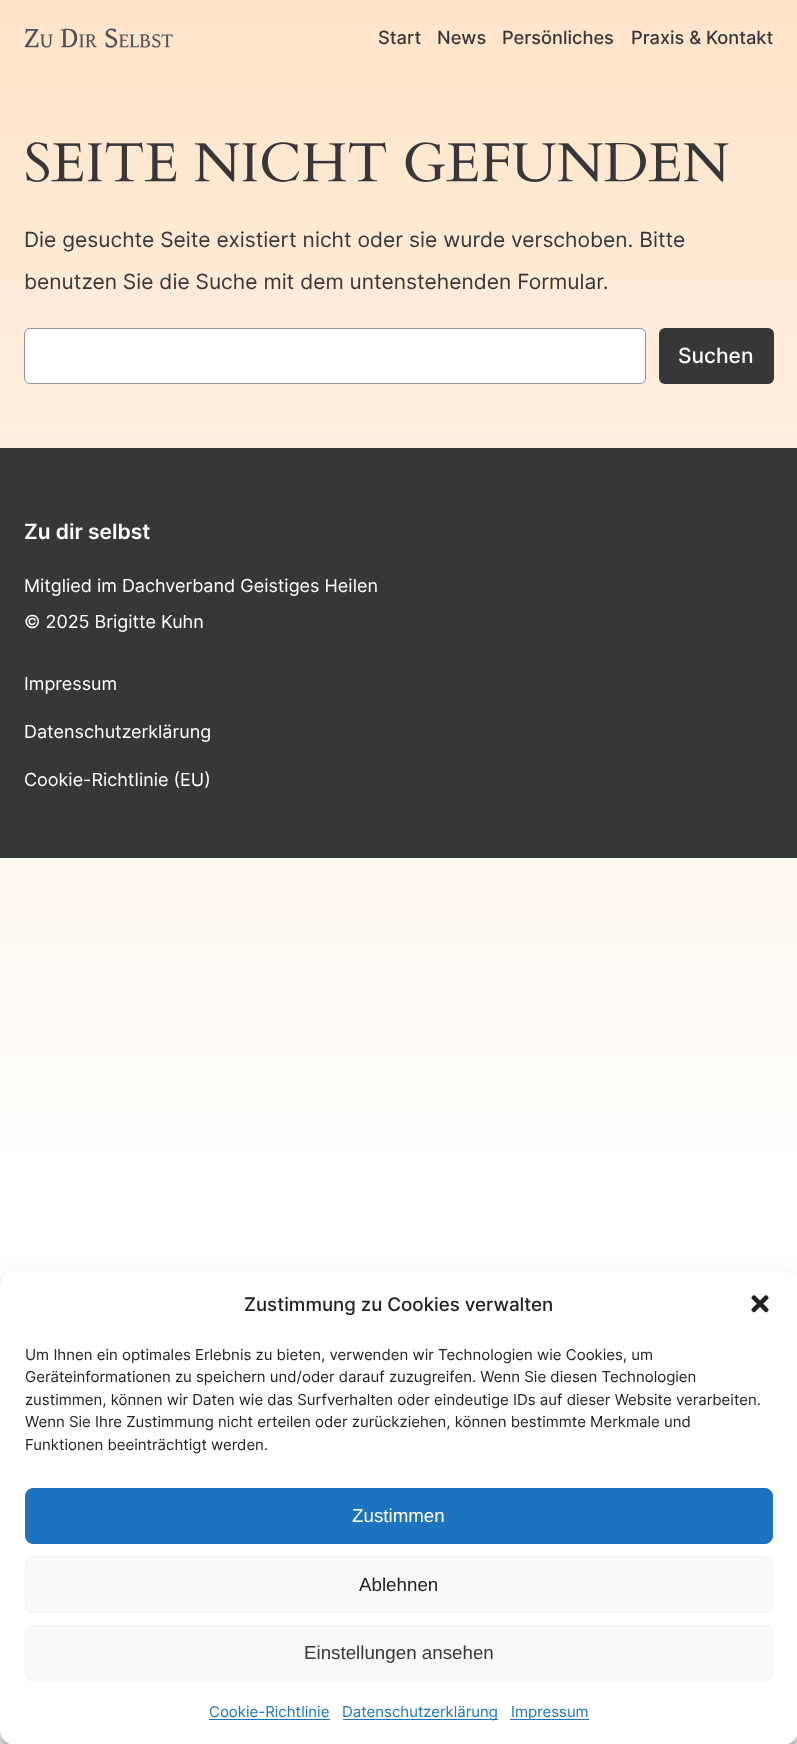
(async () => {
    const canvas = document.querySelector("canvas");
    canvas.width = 797;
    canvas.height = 1744;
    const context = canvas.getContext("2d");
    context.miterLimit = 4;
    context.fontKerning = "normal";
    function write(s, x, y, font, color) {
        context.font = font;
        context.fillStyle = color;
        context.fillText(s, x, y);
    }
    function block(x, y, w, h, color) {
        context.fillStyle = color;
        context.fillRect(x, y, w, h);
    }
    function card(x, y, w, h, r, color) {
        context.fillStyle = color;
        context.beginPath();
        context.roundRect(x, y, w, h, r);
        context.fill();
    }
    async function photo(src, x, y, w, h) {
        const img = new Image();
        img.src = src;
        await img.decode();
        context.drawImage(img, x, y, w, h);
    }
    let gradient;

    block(0, 0, 797, 1744, "rgb(255, 255, 255)");
    gradient = context.createLinearGradient(399, 0, 399, 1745);
    gradient.addColorStop(0, "rgb(255, 228, 202)");
    gradient.addColorStop(0.69, "rgb(255, 255, 255)");
    context.fillStyle = gradient;
    context.fillRect(0, 0, 797, 1147);
    await photo("media/1.png", 24, 28, 149, 20);
    write("Start", 378, 44, "500 18.25px Inter", "rgb(55, 55, 55)");
    write("News", 437, 44, "500 18.25px Inter", "rgb(55, 55, 55)");
    write("Persönliches", 502, 44, "500 18.25px Inter", "rgb(55, 55, 55)");
    write("Praxis & Kontakt", 631, 44, "500 18.25px Inter", "rgb(55, 55, 55)");
    await photo("media/2.png", 26, 142, 703, 40);
    write("Die gesuchte Seite existiert nicht oder sie wurde verschoben. Bitte", 24, 247, "21px Inter", "rgb(55, 55, 55)");
    write("benutzen Sie die Suche mit dem untenstehenden Formular.", 24, 289, "21px Inter", "rgb(55, 55, 55)");
    context.fillStyle = "rgb(255, 255, 255)";
    context.beginPath();
    context.roundRect(24.5, 328.5, 621, 55, 5.5);
    context.fill();
    context.strokeStyle = "rgb(148, 148, 148)";
    context.stroke();
    card(659, 328, 115, 56, 6, "rgb(55, 55, 55)");
    write("Suchen", 678, 363, "500 21px Inter", "rgb(249, 249, 249)");
    block(0, 448, 797, 410, "rgb(55, 55, 55)");
    write("Zu dir selbst", 24, 539, "600 21px Inter", "rgb(255, 255, 255)");
    write("Mitglied im Dachverband Geistiges Heilen", 24, 592, "18px Inter", "rgb(255, 255, 255)");
    write("© 2025 Brigitte Kuhn", 24, 628, "18px Inter", "rgb(255, 255, 255)");
    write("Impressum", 24, 690, "18px Inter", "rgb(255, 255, 255)");
    write("Datenschutzerklärung", 24, 738, "18px Inter", "rgb(255, 255, 255)");
    write("Cookie-Richtlinie (EU)", 24, 786, "18px Inter", "rgb(255, 255, 255)");
    context.fillStyle = "rgba(0, 0, 0, 0.23)";
    context.filter = "blur(4px)";
    context.beginPath();
    context.roundRect(0, 1279, 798, 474, 15);
    context.fill();
    context.filter = "none";
    context.fillStyle = "rgba(0, 0, 0, 0.19)";
    context.filter = "blur(12.5px)";
    context.beginPath();
    context.roundRect(0, 1284, 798, 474, 15);
    context.fill();
    context.filter = "none";
    card(0, 1271, 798, 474, 15, "rgb(255, 255, 255)");
    write("Zustimmung zu Cookies verwalten", 244, 1311, "500 18.75px Inter", "rgb(34, 34, 34)");
    await photo("media/3.png", 751, 1295, 18, 18);
    write("Um Ihnen ein optimales Erlebnis zu bieten, verwenden wir Technologien wie Cookies, um", 25, 1360, "15px Inter", "rgb(34, 34, 34)");
    write("Geräteinformationen zu speichern und/oder darauf zuzugreifen. Wenn Sie diesen Technologien", 25, 1382, "15px Inter", "rgb(34, 34, 34)");
    write("zustimmen, können wir Daten wie das Surfverhalten oder eindeutige IDs auf dieser Website verarbeiten.", 25, 1405, "15px Inter", "rgb(34, 34, 34)");
    write("Wenn Sie Ihre Zustimmung nicht erteilen oder zurückziehen, können bestimmte Merkmale und", 25, 1427, "15px Inter", "rgb(34, 34, 34)");
    write("Funktionen beeinträchtigt werden.", 25, 1450, "15px Inter", "rgb(34, 34, 34)");
    context.fillStyle = "rgb(30, 115, 190)";
    context.beginPath();
    context.roundRect(25.5, 1488.5, 747, 55, 7.5);
    context.fill();
    context.strokeStyle = "rgb(30, 115, 190)";
    context.stroke();
    write("Zustimmen", 352, 1522, "18.75px Liberation Sans", "rgb(255, 255, 255)");
    context.fillStyle = "rgb(249, 249, 249)";
    context.beginPath();
    context.roundRect(25.5, 1556.5, 747, 56, 7.5);
    context.fill();
    context.strokeStyle = "rgb(242, 242, 242)";
    context.stroke();
    write("Ablehnen", 359, 1591, "18.75px Liberation Sans", "rgb(34, 34, 34)");
    context.fillStyle = "rgb(249, 249, 249)";
    context.beginPath();
    context.roundRect(25.5, 1625.5, 747, 55, 7.5);
    context.fill();
    context.stroke();
    write("Einstellungen ansehen", 304, 1659, "18.75px Liberation Sans", "rgb(55, 55, 55)");
    write("Cookie-Richtlinie", 209, 1717, "15px Inter", "rgb(30, 115, 190)");
    block(209, 1719, 121, 1, "rgb(30, 115, 190)");
    block(343, 1719, 155, 1, "rgb(30, 115, 190)");
    write("Datenschutzerklärung", 342, 1717, "15px Inter", "rgb(30, 115, 190)");
    block(510, 1719, 79, 1, "rgb(30, 115, 190)");
    write("Impressum", 511, 1717, "15px Inter", "rgb(30, 115, 190)");
})();
